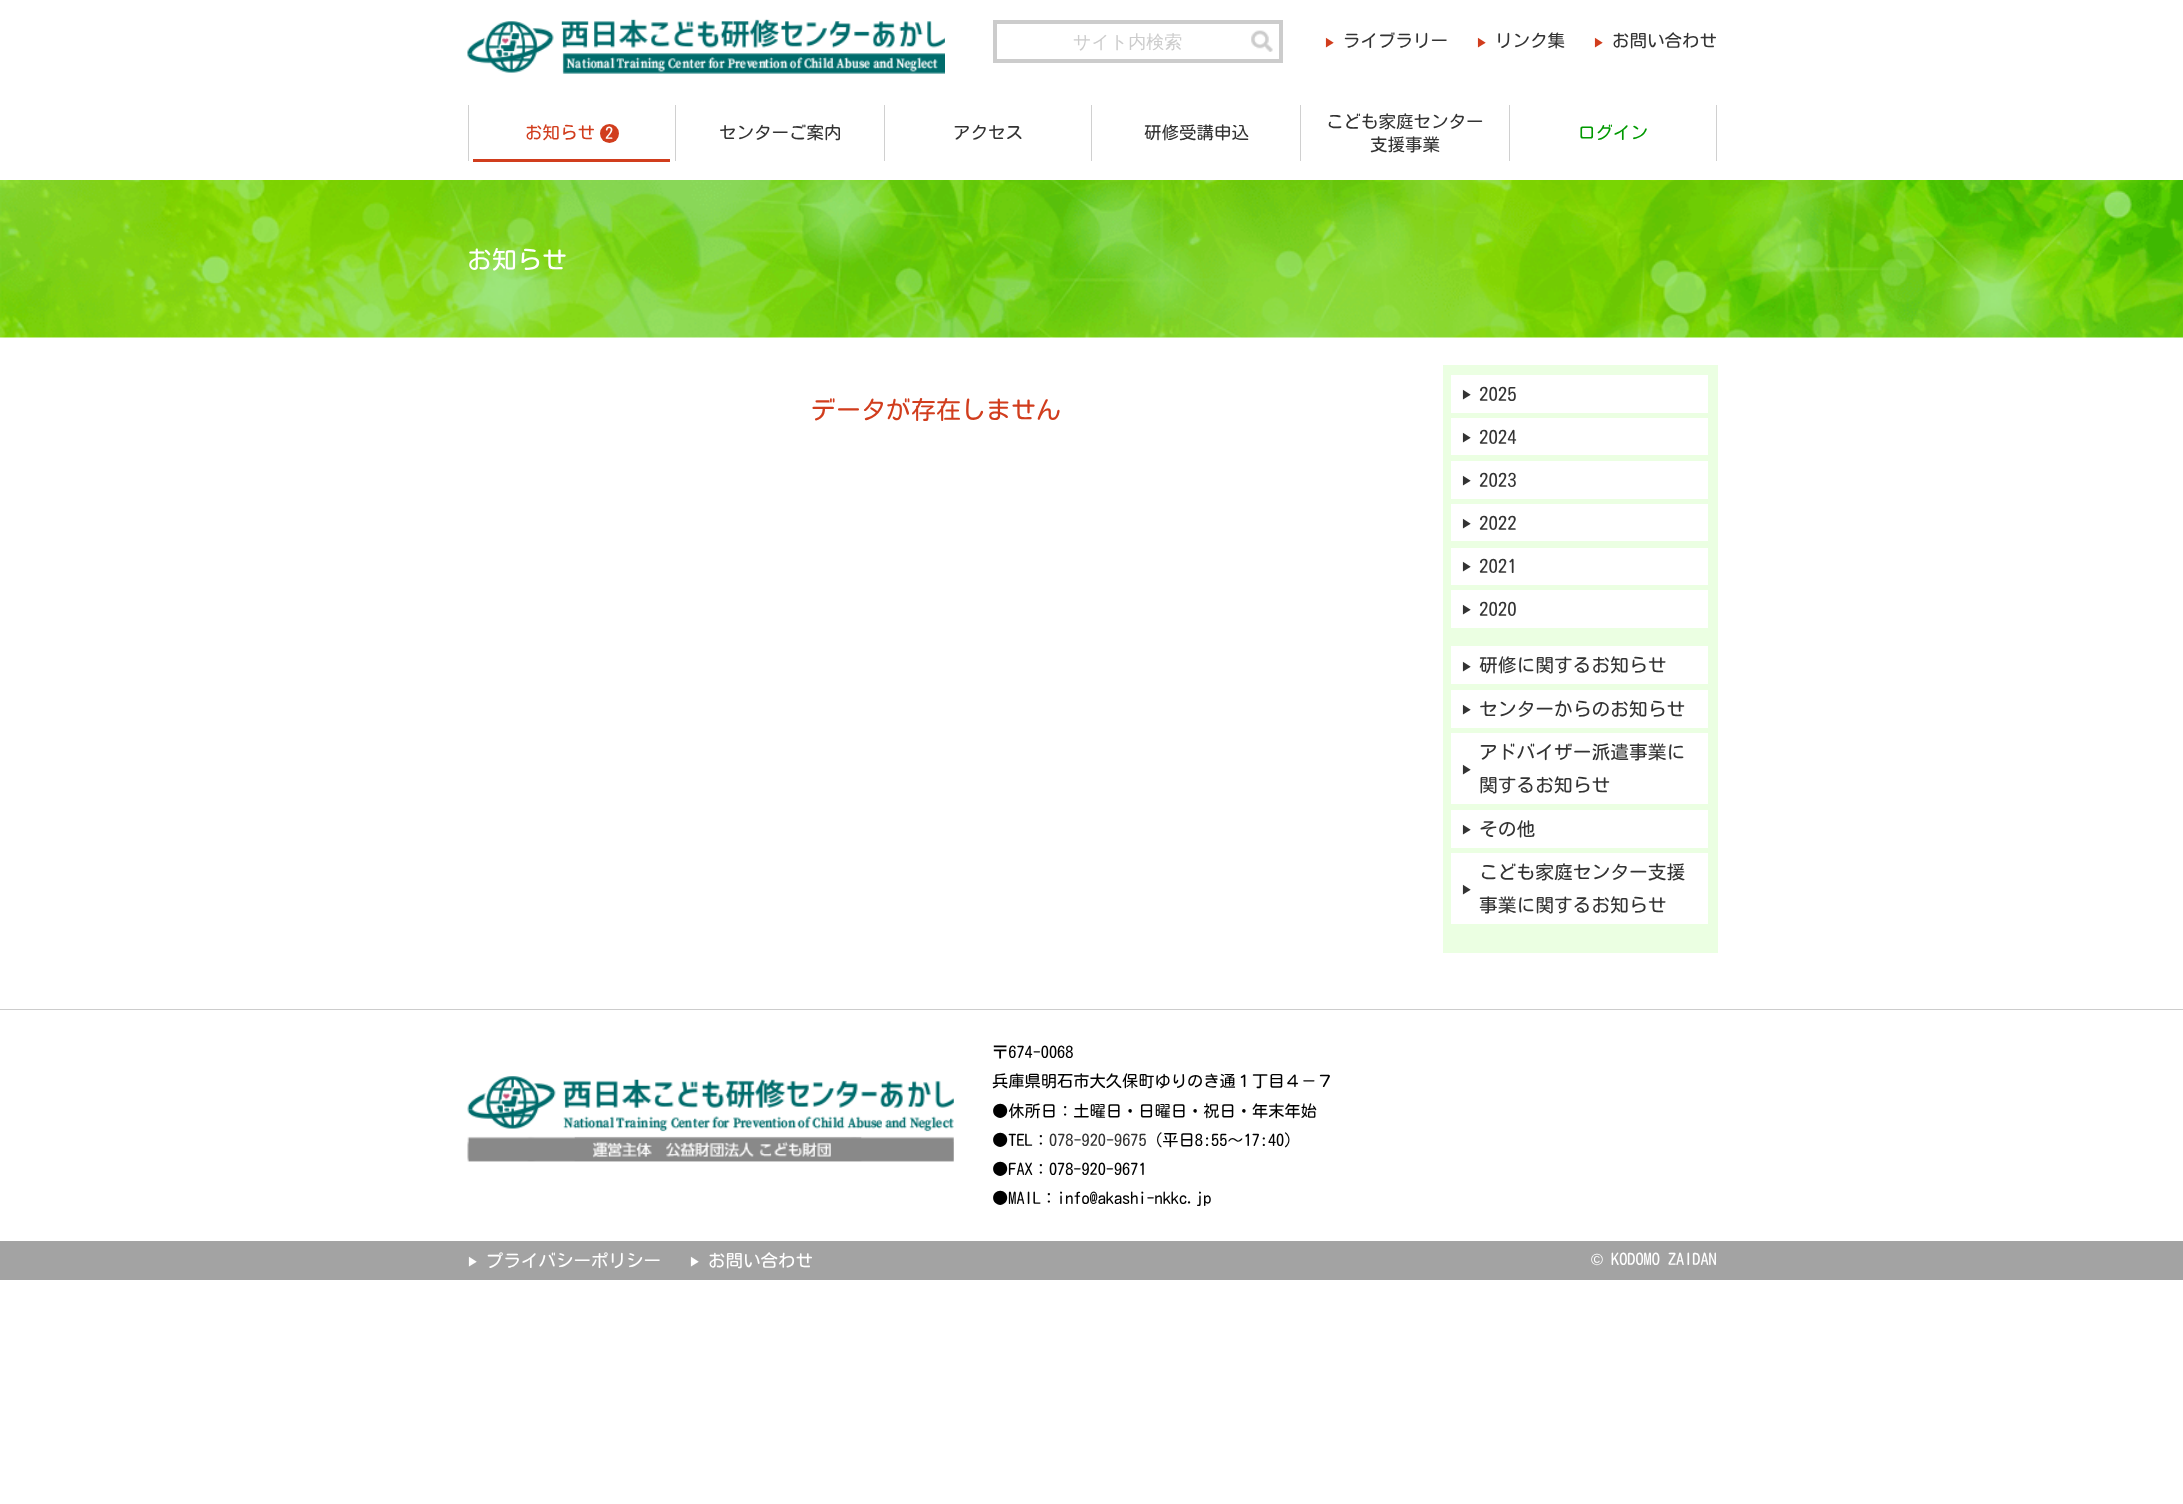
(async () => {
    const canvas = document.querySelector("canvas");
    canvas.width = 2183;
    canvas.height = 1504;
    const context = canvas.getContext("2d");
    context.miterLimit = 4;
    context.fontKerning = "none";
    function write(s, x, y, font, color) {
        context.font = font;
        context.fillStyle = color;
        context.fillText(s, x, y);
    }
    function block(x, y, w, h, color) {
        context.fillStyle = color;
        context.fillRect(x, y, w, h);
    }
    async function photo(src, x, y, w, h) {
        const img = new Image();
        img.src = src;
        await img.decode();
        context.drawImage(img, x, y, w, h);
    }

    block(0, 0, 2183, 1504, "rgb(255, 255, 255)");
    await photo("media/1.png", 467, 18, 478, 56);
    context.strokeStyle = "rgb(204, 204, 204)";
    context.lineWidth = 4;
    context.strokeRect(995, 22, 286, 39);
    write("サイト内検索", 1073, 48, "500 18px WenQuanYi Zen Hei", "rgb(204, 204, 204)");
    await photo("media/2.png", 1251, 30, 22, 22);
    write("▶︎", 1324, 47, "500 12px WenQuanYi Zen Hei", "rgb(209, 61, 29)");
    write("ライブラリー", 1343, 47, "17.5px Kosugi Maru", "rgb(51, 51, 51)");
    write("▶︎", 1476, 47, "500 12px WenQuanYi Zen Hei", "rgb(209, 61, 29)");
    write("リンク集", 1495, 47, "17.5px Kosugi Maru", "rgb(51, 51, 51)");
    write("▶︎", 1593, 47, "500 12px WenQuanYi Zen Hei", "rgb(209, 61, 29)");
    write("お問い合わせ", 1612, 47, "17.5px Kosugi Maru", "rgb(51, 51, 51)");
    block(468, 105, 1, 56, "rgb(208, 208, 208)");
    write("お知らせ", 525, 139, "17.5px Kosugi Maru", "rgb(209, 61, 29)");
    context.beginPath();
    context.arc(609.5, 133.5, 9.5, 0, Math.PI * 2);
    context.fill();
    write("2", 605, 139, "16.25px Kosugi Maru", "rgb(255, 255, 255)");
    block(473, 159, 197, 3, "rgb(209, 61, 29)");
    block(675, 105, 1, 56, "rgb(208, 208, 208)");
    write("センターご案内", 719, 139, "17.5px Kosugi Maru", "rgb(51, 51, 51)");
    block(884, 105, 1, 56, "rgb(208, 208, 208)");
    write("アクセス", 953, 139, "17.5px Kosugi Maru", "rgb(51, 51, 51)");
    block(1091, 105, 1, 56, "rgb(208, 208, 208)");
    write("研修受講申込", 1144, 139, "17.5px Kosugi Maru", "rgb(51, 51, 51)");
    block(1300, 105, 1, 56, "rgb(208, 208, 208)");
    write("こども家庭センター", 1326, 128, "17.5px Kosugi Maru", "rgb(51, 51, 51)");
    write("支援事業", 1370, 151, "17.5px Kosugi Maru", "rgb(51, 51, 51)");
    block(1716, 105, 1, 56, "rgb(208, 208, 208)");
    block(1509, 105, 1, 56, "rgb(208, 208, 208)");
    write("ログイン", 1578, 139, "17.5px Kosugi Maru", "rgb(0, 153, 0)");
    await photo("media/3.png", 0, 180, 2183, 158);
    write("お知らせ", 467, 269, "25px Kosugi Maru", "rgb(255, 255, 255)");
    write("データが存在しません", 811, 419, "25px Kosugi Maru", "rgb(209, 61, 29)");
    block(1443, 365, 275, 588, "rgb(235, 255, 226)");
    block(1451, 375, 257, 38, "rgb(255, 255, 255)");
    write("▶︎", 1461, 399, "500 12px WenQuanYi Zen Hei", "rgb(51, 51, 51)");
    write("2025", 1479, 401, "18.75px Kosugi Maru", "rgb(51, 51, 51)");
    block(1451, 418, 257, 37, "rgb(255, 255, 255)");
    write("▶︎", 1461, 442, "500 12px WenQuanYi Zen Hei", "rgb(51, 51, 51)");
    write("2024", 1479, 444, "18.75px Kosugi Maru", "rgb(51, 51, 51)");
    block(1451, 461, 257, 38, "rgb(255, 255, 255)");
    write("▶︎", 1461, 485, "500 12px WenQuanYi Zen Hei", "rgb(51, 51, 51)");
    write("2023", 1479, 487, "18.75px Kosugi Maru", "rgb(51, 51, 51)");
    block(1451, 504, 257, 37, "rgb(255, 255, 255)");
    write("▶︎", 1461, 528, "500 12px WenQuanYi Zen Hei", "rgb(51, 51, 51)");
    write("2022", 1479, 530, "18.75px Kosugi Maru", "rgb(51, 51, 51)");
    block(1451, 548, 257, 37, "rgb(255, 255, 255)");
    write("▶︎", 1461, 571, "500 12px WenQuanYi Zen Hei", "rgb(51, 51, 51)");
    write("2021", 1479, 573, "18.75px Kosugi Maru", "rgb(51, 51, 51)");
    block(1451, 590, 257, 38, "rgb(255, 255, 255)");
    write("▶︎", 1461, 614, "500 12px WenQuanYi Zen Hei", "rgb(51, 51, 51)");
    write("2020", 1479, 616, "18.75px Kosugi Maru", "rgb(51, 51, 51)");
    block(1451, 646, 257, 38, "rgb(255, 255, 255)");
    write("▶︎", 1461, 671, "500 12px WenQuanYi Zen Hei", "rgb(51, 51, 51)");
    write("研修に関するお知らせ", 1479, 672, "18.75px Kosugi Maru", "rgb(51, 51, 51)");
    block(1451, 690, 257, 38, "rgb(255, 255, 255)");
    write("▶︎", 1461, 714, "500 12px WenQuanYi Zen Hei", "rgb(51, 51, 51)");
    write("センターからのお知らせ", 1479, 716, "18.75px Kosugi Maru", "rgb(51, 51, 51)");
    block(1451, 733, 257, 71, "rgb(255, 255, 255)");
    write("アドバイザー派遣事業に", 1479, 759, "18.75px Kosugi Maru", "rgb(51, 51, 51)");
    write("▶︎", 1461, 774, "500 12px WenQuanYi Zen Hei", "rgb(51, 51, 51)");
    write("関するお知らせ", 1479, 792, "18.75px Kosugi Maru", "rgb(51, 51, 51)");
    block(1451, 810, 257, 38, "rgb(255, 255, 255)");
    write("▶︎", 1461, 834, "500 12px WenQuanYi Zen Hei", "rgb(51, 51, 51)");
    write("その他", 1479, 836, "18.75px Kosugi Maru", "rgb(51, 51, 51)");
    block(1451, 853, 257, 71, "rgb(255, 255, 255)");
    write("こども家庭センター支援", 1479, 879, "18.75px Kosugi Maru", "rgb(51, 51, 51)");
    write("▶︎", 1461, 894, "500 12px WenQuanYi Zen Hei", "rgb(51, 51, 51)");
    write("事業に関するお知らせ", 1479, 912, "18.75px Kosugi Maru", "rgb(51, 51, 51)");
    block(0, 1009, 2183, 1, "rgb(204, 204, 204)");
    await photo("media/4.png", 467, 1076, 487, 86);
    write("〒674-0068", 992, 1058, "16.25px Kosugi Maru", "rgb(0, 0, 0)");
    write("兵庫県明石市大久保町ゆりのき通１丁目４－７", 992, 1087, "16.25px Kosugi Maru", "rgb(0, 0, 0)");
    write("●休所日：土曜日・日曜日・祝日・年末年始", 992, 1117, "16.25px Kosugi Maru", "rgb(0, 0, 0)");
    write("●TEL：", 992, 1146, "16.25px Kosugi Maru", "rgb(0, 0, 0)");
    write("078-920-9675", 1049, 1146, "16.25px Kosugi Maru", "rgb(51, 51, 51)");
    write("（平日8:55～17:40）", 1146, 1146, "16.25px Kosugi Maru", "rgb(0, 0, 0)");
    write("●FAX：078-920-9671", 992, 1175, "16.25px Kosugi Maru", "rgb(0, 0, 0)");
    write("●MAIL：info@akashi-nkkc.jp", 992, 1204, "16.25px Kosugi Maru", "rgb(0, 0, 0)");
    block(0, 1241, 2183, 39, "rgb(163, 163, 163)");
    write("▶︎", 467, 1266, "500 12px WenQuanYi Zen Hei", "rgb(255, 255, 255)");
    write("プライバシーポリシー", 486, 1267, "17.5px Kosugi Maru", "rgb(255, 255, 255)");
    write("▶︎", 689, 1266, "500 12px WenQuanYi Zen Hei", "rgb(255, 255, 255)");
    write("お問い合わせ", 708, 1267, "17.5px Kosugi Maru", "rgb(255, 255, 255)");
    write("©", 1591, 1265, "16.25px Liberation Sans", "rgb(255, 255, 255)");
    write("KODOMO ZAIDAN", 1611, 1265, "16.25px Kosugi Maru", "rgb(255, 255, 255)");
})();
